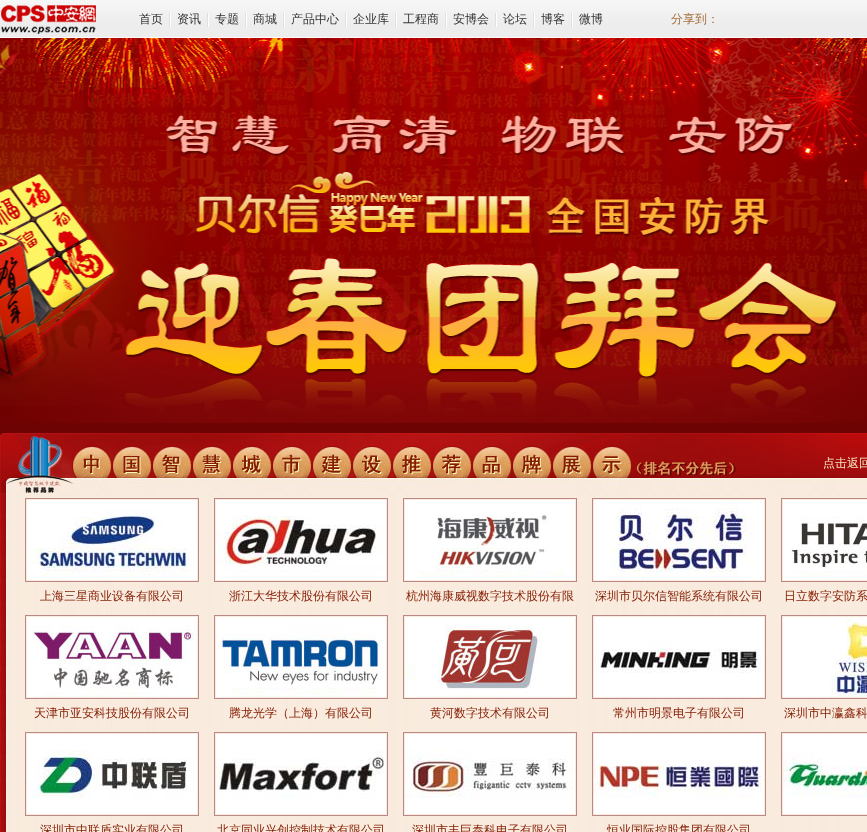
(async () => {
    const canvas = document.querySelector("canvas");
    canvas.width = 867;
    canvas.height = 832;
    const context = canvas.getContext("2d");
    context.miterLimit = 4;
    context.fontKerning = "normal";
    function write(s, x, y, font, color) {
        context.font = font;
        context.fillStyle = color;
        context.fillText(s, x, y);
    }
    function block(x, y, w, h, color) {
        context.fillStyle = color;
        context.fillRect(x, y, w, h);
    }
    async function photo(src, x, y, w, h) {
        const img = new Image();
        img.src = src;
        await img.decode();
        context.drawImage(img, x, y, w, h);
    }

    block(0, 0, 867, 832, "rgb(110, 3, 3)");
    await photo("media/1.png", 0, 38, 867, 385);
    await photo("media/2.png", 0, 0, 867, 38);
    await photo("media/3.png", 0, 0, 96, 36);
    write("首页", 139, 23, "500 12px WenQuanYi Zen Hei", "rgb(51, 51, 51)");
    await photo("media/4.png", 169, 13, 2, 14);
    write("资讯", 177, 23, "500 12px WenQuanYi Zen Hei", "rgb(51, 51, 51)");
    await photo("media/4.png", 207, 13, 2, 14);
    write("专题", 215, 23, "500 12px WenQuanYi Zen Hei", "rgb(51, 51, 51)");
    await photo("media/4.png", 245, 13, 2, 14);
    write("商城", 253, 23, "500 12px WenQuanYi Zen Hei", "rgb(51, 51, 51)");
    await photo("media/4.png", 283, 13, 2, 14);
    write("产品中心", 291, 23, "500 12px WenQuanYi Zen Hei", "rgb(51, 51, 51)");
    await photo("media/4.png", 345, 13, 2, 14);
    write("企业库", 353, 23, "500 12px WenQuanYi Zen Hei", "rgb(51, 51, 51)");
    await photo("media/4.png", 395, 13, 2, 14);
    write("工程商", 403, 23, "500 12px WenQuanYi Zen Hei", "rgb(51, 51, 51)");
    await photo("media/4.png", 445, 13, 2, 14);
    write("安博会", 453, 23, "500 12px WenQuanYi Zen Hei", "rgb(51, 51, 51)");
    await photo("media/4.png", 495, 13, 2, 14);
    write("论坛", 503, 23, "500 12px WenQuanYi Zen Hei", "rgb(51, 51, 51)");
    await photo("media/4.png", 533, 13, 2, 14);
    write("博客", 541, 23, "500 12px WenQuanYi Zen Hei", "rgb(51, 51, 51)");
    await photo("media/4.png", 571, 13, 2, 14);
    write("微博", 579, 23, "500 12px WenQuanYi Zen Hei", "rgb(51, 51, 51)");
    write("分享到：", 671, 23, "500 12px WenQuanYi Zen Hei", "rgb(164, 110, 56)");
    await photo("media/5.png", 0, 433, 867, 60);
    context.wordSpacing = "-1px";
    write("点击返回", 823, 467, "500 12px WenQuanYi Zen Hei", "rgb(245, 231, 194)");
    await photo("media/6.png", 0, 493, 867, 339);
    context.strokeStyle = "rgb(187, 136, 135)";
    context.strokeRect(25.5, 498.5, 173, 83);
    await photo("media/7.png", 27, 500, 170, 80);
    context.wordSpacing = "0px";
    write("上海三星商业设备有限公司", 40, 600, "500 12px WenQuanYi Zen Hei", "rgb(132, 28, 0)");
    context.strokeRect(214.5, 498.5, 173, 83);
    await photo("media/8.png", 216, 500, 170, 80);
    write("浙江大华技术股份有限公司", 229, 600, "500 12px WenQuanYi Zen Hei", "rgb(132, 28, 0)");
    context.strokeRect(403.5, 498.5, 173, 83);
    await photo("media/9.png", 405, 500, 170, 80);
    write("杭州海康威视数字技术股份有限", 406, 600, "500 12px WenQuanYi Zen Hei", "rgb(132, 28, 0)");
    context.strokeRect(592.5, 498.5, 173, 83);
    await photo("media/10.png", 594, 500, 170, 80);
    write("深圳市贝尔信智能系统有限公司", 595, 600, "500 12px WenQuanYi Zen Hei", "rgb(132, 28, 0)");
    context.strokeRect(781.5, 498.5, 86, 83);
    await photo("media/11.png", 783, 500, 84, 80);
    write("日立数字安防系", 784, 600, "500 12px WenQuanYi Zen Hei", "rgb(132, 28, 0)");
    context.strokeRect(25.5, 615.5, 173, 83);
    await photo("media/12.png", 27, 617, 170, 80);
    write("天津市亚安科技股份有限公司", 34, 717, "500 12px WenQuanYi Zen Hei", "rgb(132, 28, 0)");
    context.strokeRect(214.5, 615.5, 173, 83);
    await photo("media/13.png", 216, 617, 170, 80);
    write("腾龙光学（上海）有限公司", 229, 717, "500 12px WenQuanYi Zen Hei", "rgb(132, 28, 0)");
    context.strokeRect(403.5, 615.5, 173, 83);
    await photo("media/14.png", 405, 617, 170, 80);
    write("黄河数字技术有限公司", 430, 717, "500 12px WenQuanYi Zen Hei", "rgb(132, 28, 0)");
    context.strokeRect(592.5, 615.5, 173, 83);
    await photo("media/15.png", 594, 617, 170, 80);
    write("常州市明景电子有限公司", 613, 717, "500 12px WenQuanYi Zen Hei", "rgb(132, 28, 0)");
    context.strokeRect(781.5, 615.5, 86, 83);
    await photo("media/16.png", 783, 617, 84, 80);
    write("深圳市中瀛鑫科", 784, 717, "500 12px WenQuanYi Zen Hei", "rgb(132, 28, 0)");
    context.strokeRect(781.5, 732.5, 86, 83);
    await photo("media/17.png", 783, 734, 84, 80);
    context.strokeRect(25.5, 732.5, 173, 83);
    await photo("media/18.png", 27, 734, 170, 80);
    write("深圳市中联盾实业有限公司", 40, 834, "500 12px WenQuanYi Zen Hei", "rgb(132, 28, 0)");
    context.strokeRect(214.5, 732.5, 173, 83);
    await photo("media/19.png", 216, 734, 170, 80);
    write("北京同业兴创控制技术有限公司", 217, 834, "500 12px WenQuanYi Zen Hei", "rgb(132, 28, 0)");
    context.strokeRect(403.5, 732.5, 173, 83);
    await photo("media/20.png", 405, 734, 170, 80);
    write("深圳市丰巨泰科电子有限公司", 412, 834, "500 12px WenQuanYi Zen Hei", "rgb(132, 28, 0)");
    context.strokeRect(592.5, 732.5, 173, 83);
    await photo("media/21.png", 594, 734, 170, 80);
    write("恒业国际控股集团有限公司", 607, 834, "500 12px WenQuanYi Zen Hei", "rgb(132, 28, 0)");
})();
